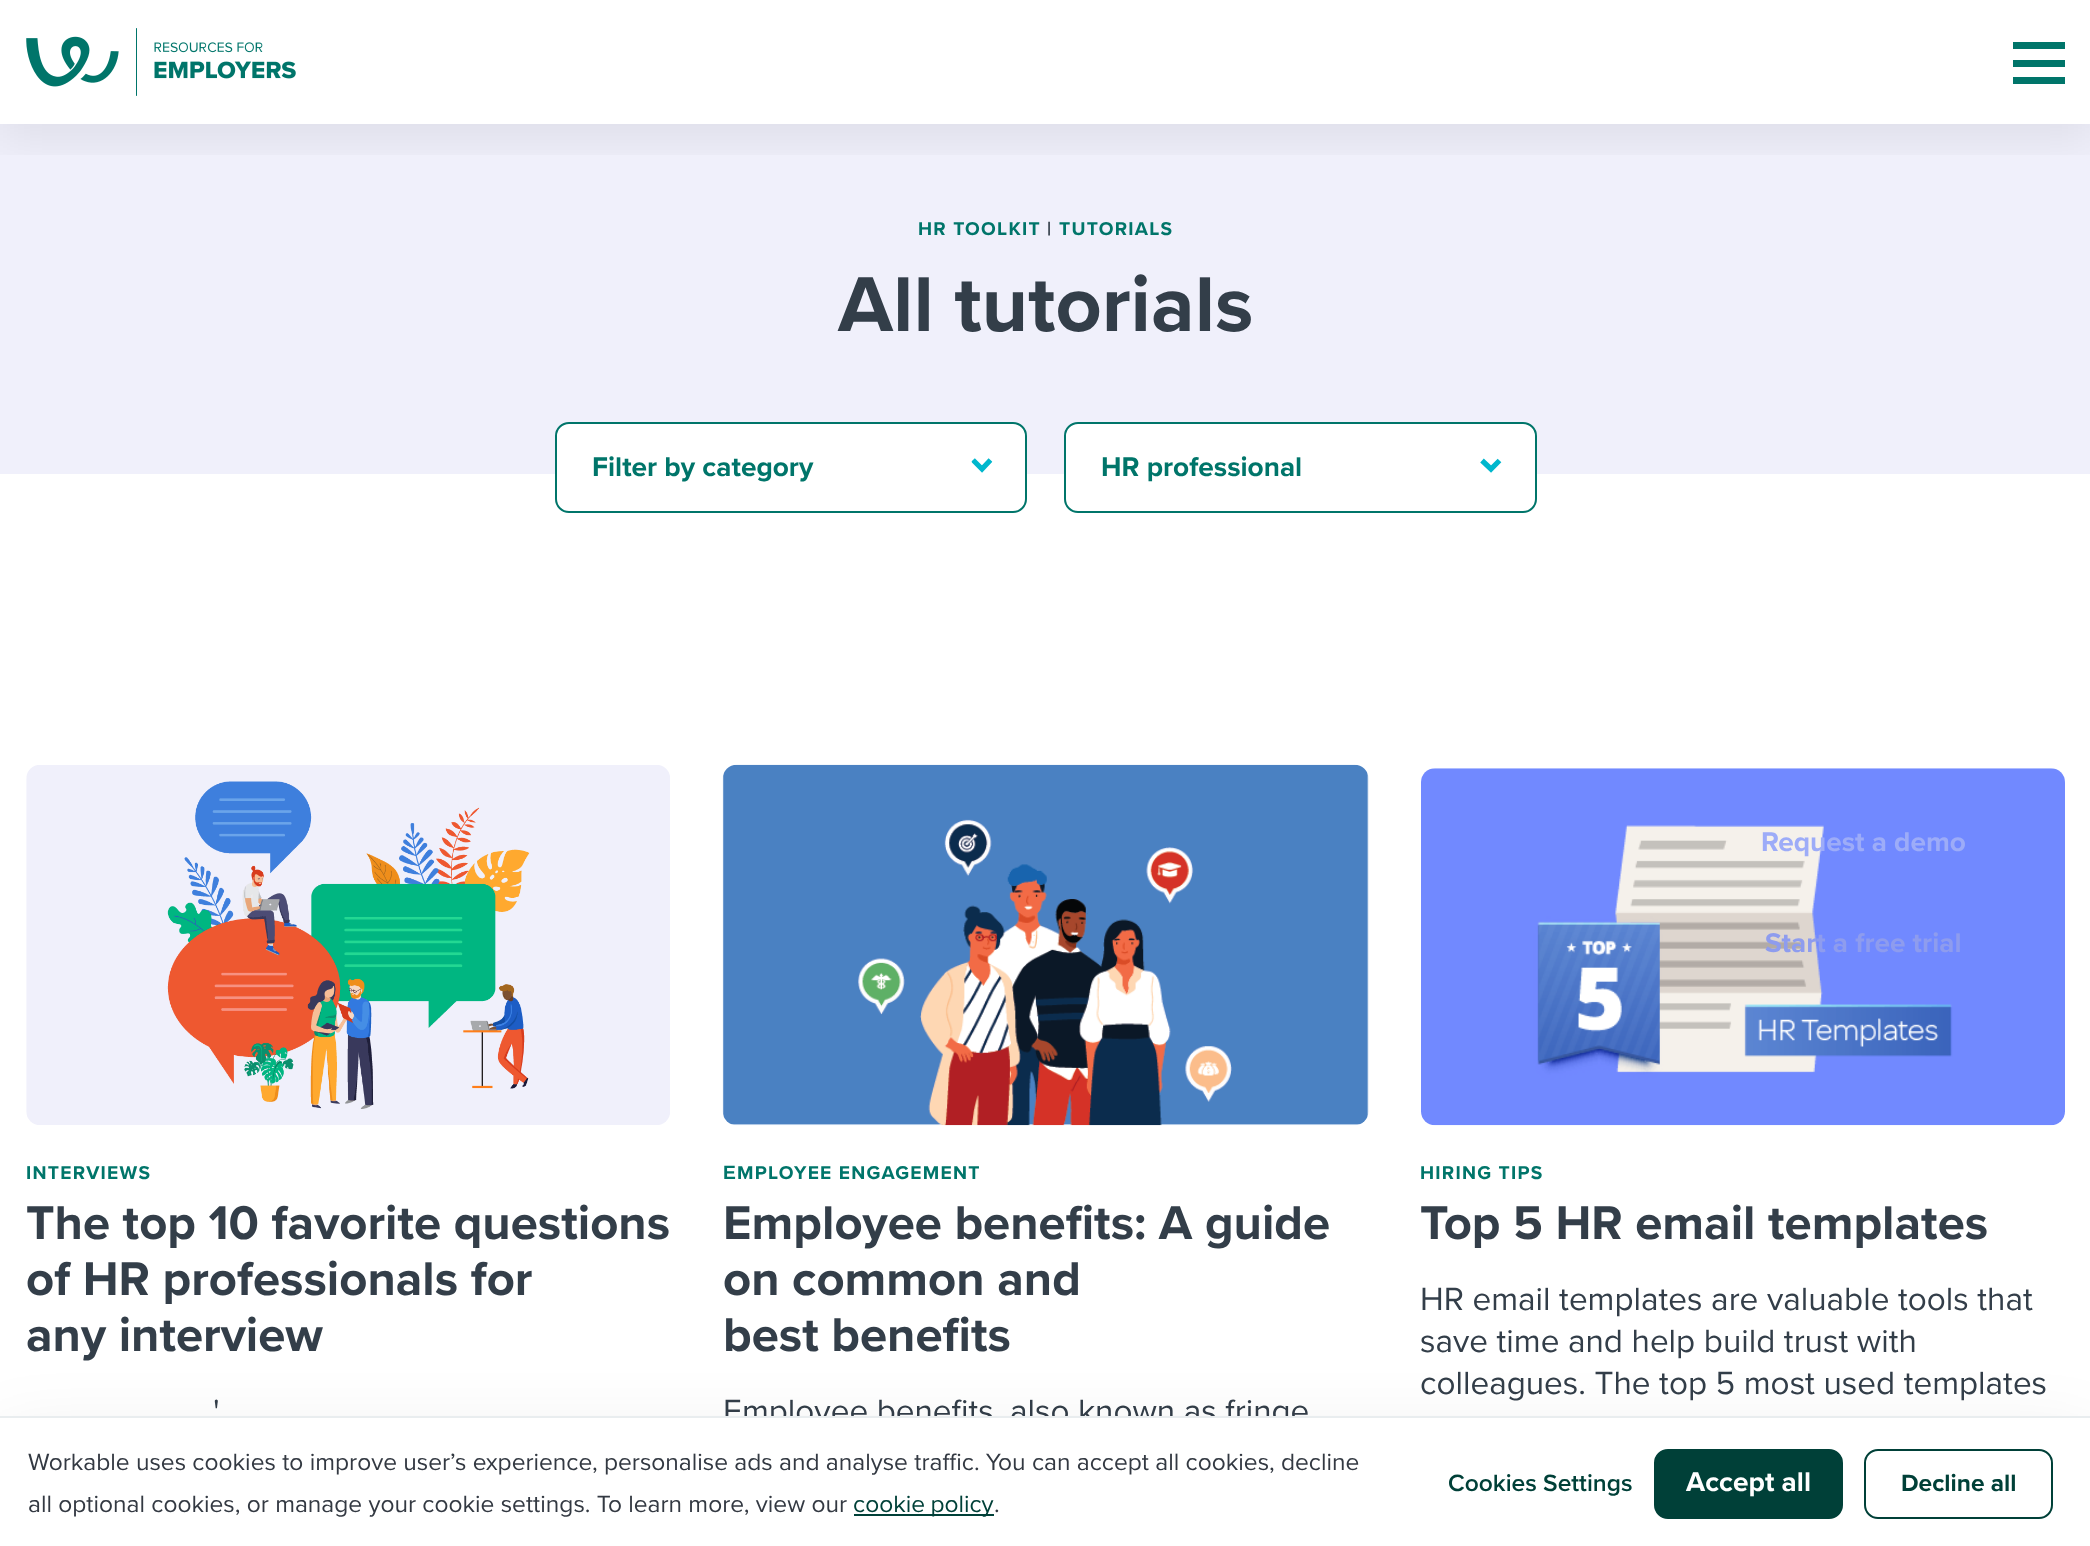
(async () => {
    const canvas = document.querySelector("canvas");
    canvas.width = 2090;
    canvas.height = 1546;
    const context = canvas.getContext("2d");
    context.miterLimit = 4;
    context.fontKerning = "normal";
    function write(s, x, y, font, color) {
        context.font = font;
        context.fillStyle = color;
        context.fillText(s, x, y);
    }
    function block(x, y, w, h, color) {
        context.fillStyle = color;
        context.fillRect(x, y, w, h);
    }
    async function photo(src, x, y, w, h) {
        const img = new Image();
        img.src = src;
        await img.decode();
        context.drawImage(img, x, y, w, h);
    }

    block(0, 0, 2090, 1546, "rgb(255, 255, 255)");
    block(0, 124, 2090, 350, "rgb(240, 240, 251)");
    context.letterSpacing = "1.25px";
    write("HR TOOLKIT", 918, 235, "bold 19.25px Proxima Nova", "rgb(0, 117, 106)");
    write("|", 1047, 235, "bold 19.25px Proxima Nova", "rgb(51, 62, 73)");
    write("TUTORIALS", 1059, 235, "bold 19.25px Proxima Nova", "rgb(0, 117, 106)");
    context.letterSpacing = "0px";
    write("All tutorials", 838, 331, "bold 80.5px Proxima Nova", "rgb(51, 62, 73)");
    context.fillStyle = "rgb(255, 255, 255)";
    context.beginPath();
    context.roundRect(556, 423, 470, 89, 13);
    context.fill();
    context.strokeStyle = "rgb(0, 117, 106)";
    context.lineWidth = 2;
    context.stroke();
    write("Filter by category", 592, 476, "bold 28px Proxima Nova", "rgb(0, 117, 106)");
    context.save();
    context.beginPath();
    context.moveTo(992.5, 457);
    context.lineTo(992.5, 474);
    context.lineTo(971.5, 474);
    context.lineTo(971.5, 457);
    context.closePath();
    context.clip();
    context.beginPath();
    context.moveTo(973, 460);
    context.lineTo(982, 469);
    context.lineTo(990.5, 460);
    context.strokeStyle = "rgb(0, 183, 205)";
    context.lineWidth = 5.2;
    context.stroke();
    context.restore();
    context.fillStyle = "rgb(255, 255, 255)";
    context.beginPath();
    context.roundRect(1065, 423, 471, 89, 13);
    context.fill();
    context.stroke();
    write("HR professional", 1101, 476, "bold 28px Proxima Nova", "rgb(0, 117, 106)");
    context.beginPath();
    context.moveTo(1482, 460.5);
    context.lineTo(1491, 469);
    context.lineTo(1499.5, 460.5);
    context.strokeStyle = "rgb(0, 183, 205)";
    context.lineWidth = 5.2;
    context.stroke();
    await photo("media/1.png", 26, 765, 644, 360);
    context.letterSpacing = "1.25px";
    write("INTERVIEWS", 26, 1179, "bold 19.25px Proxima Nova", "rgb(0, 117, 106)");
    context.letterSpacing = "0px";
    write("The top 10 favorite questions", 26, 1239, "bold 49px Proxima Nova", "rgb(51, 62, 73)");
    write("of HR professionals for", 26, 1295, "bold 49px Proxima Nova", "rgb(51, 62, 73)");
    write("any interview", 26, 1351, "bold 49px Proxima Nova", "rgb(51, 62, 73)");
    write("'", 213, 1422, "33.25px Proxima Nova", "rgb(51, 62, 73)");
    await photo("media/2.png", 722, 764, 647, 362);
    context.letterSpacing = "1.25px";
    write("Ε", 723, 1179, "bold 19.25px Liberation Sans", "rgb(0, 117, 106)");
    write("MPLOYEE ENGAGEMENT", 737, 1179, "bold 19.25px Proxima Nova", "rgb(0, 117, 106)");
    context.letterSpacing = "0px";
    write("Employee benefits: A guide", 723, 1239, "bold 49px Proxima Nova", "rgb(51, 62, 73)");
    write("on common and", 723, 1295, "bold 49px Proxima Nova", "rgb(51, 62, 73)");
    write("best benefits", 723, 1351, "bold 49px Proxima Nova", "rgb(51, 62, 73)");
    write("Employee benefits, also known as fringe", 723, 1422, "33.25px Proxima Nova", "rgb(51, 62, 73)");
    await photo("media/3.png", 1421, 768, 644, 358);
    context.letterSpacing = "1.25px";
    write("HIRING TIPS", 1420, 1179, "bold 19.25px Proxima Nova", "rgb(0, 117, 106)");
    context.letterSpacing = "0px";
    write("Top 5 HR email templates", 1420, 1239, "bold 49px Proxima Nova", "rgb(51, 62, 73)");
    write("HR email templates are valuable tools that", 1420, 1310, "33.25px Proxima Nova", "rgb(51, 62, 73)");
    write("save time and help build trust with", 1420, 1352, "33.25px Proxima Nova", "rgb(51, 62, 73)");
    write("colleagues. The top 5 most used templates", 1420, 1394, "33.25px Proxima Nova", "rgb(51, 62, 73)");
    context.save();
    context.beginPath();
    context.rect(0, 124, 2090, 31);
    context.clip();
    context.fillStyle = "rgba(0, 0, 0, 0.08)";
    context.filter = "blur(25.5px)";
    context.beginPath();
    context.rect(-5, 4, 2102, 134);
    context.fill();
    context.filter = "none";
    context.restore();
    await photo("media/4.png", 26, 28, 270, 68);
    block(2013, 60, 52, 7, "rgb(0, 117, 106)");
    block(2013, 42, 52, 7, "rgb(0, 117, 106)");
    block(2013, 77, 52, 7, "rgb(0, 117, 106)");
    write("Request a demo", 1761, 851, "bold 28px Proxima Nova", "rgb(157, 172, 248)");
    write("Start a free trial", 1765, 952, "bold 28px Proxima Nova", "rgb(142, 156, 238)");
    context.fillStyle = "rgba(0, 0, 0, 0.1)";
    context.filter = "blur(37.5px)";
    context.beginPath();
    context.rect(0, 1444, 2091, 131);
    context.fill();
    context.filter = "none";
    block(0, 1418, 2090, 128, "rgb(255, 255, 255)");
    block(0, 1416, 2090, 2, "rgb(233, 237, 239)");
    write("Workable uses cookies to improve user’s experience, personalise ads and analyse traffic. You can accept all cookies, decline", 28, 1470, "24.5px Proxima Nova", "rgb(51, 57, 66)");
    write("all optional cookies, or manage your cookie settings. To learn more, view our", 28, 1512, "24.5px Proxima Nova", "rgb(51, 57, 66)");
    block(854, 1514, 140, 2, "rgb(0, 64, 56)");
    context.wordSpacing = "-1px";
    write("cookie policy", 853, 1512, "24.5px Proxima Nova", "rgb(0, 64, 56)");
    context.wordSpacing = "0px";
    write(".", 994, 1512, "24.5px Proxima Nova", "rgb(51, 57, 66)");
    write("Cookies Settings", 1448, 1491, "600 24.5px Proxima Nova", "rgb(0, 64, 56)");
    context.beginPath();
    context.roundRect(1655, 1450, 187, 68, 13);
    context.fill();
    context.strokeStyle = "rgb(0, 64, 56)";
    context.lineWidth = 2;
    context.stroke();
    write("Accept all", 1686, 1491, "bold 28px Proxima Nova", "rgb(255, 255, 255)");
    context.beginPath();
    context.roundRect(1865, 1450, 187, 68, 13);
    context.stroke();
    write("Decline all", 1901, 1491, "bold 24.5px Proxima Nova", "rgb(0, 64, 56)");
})();
